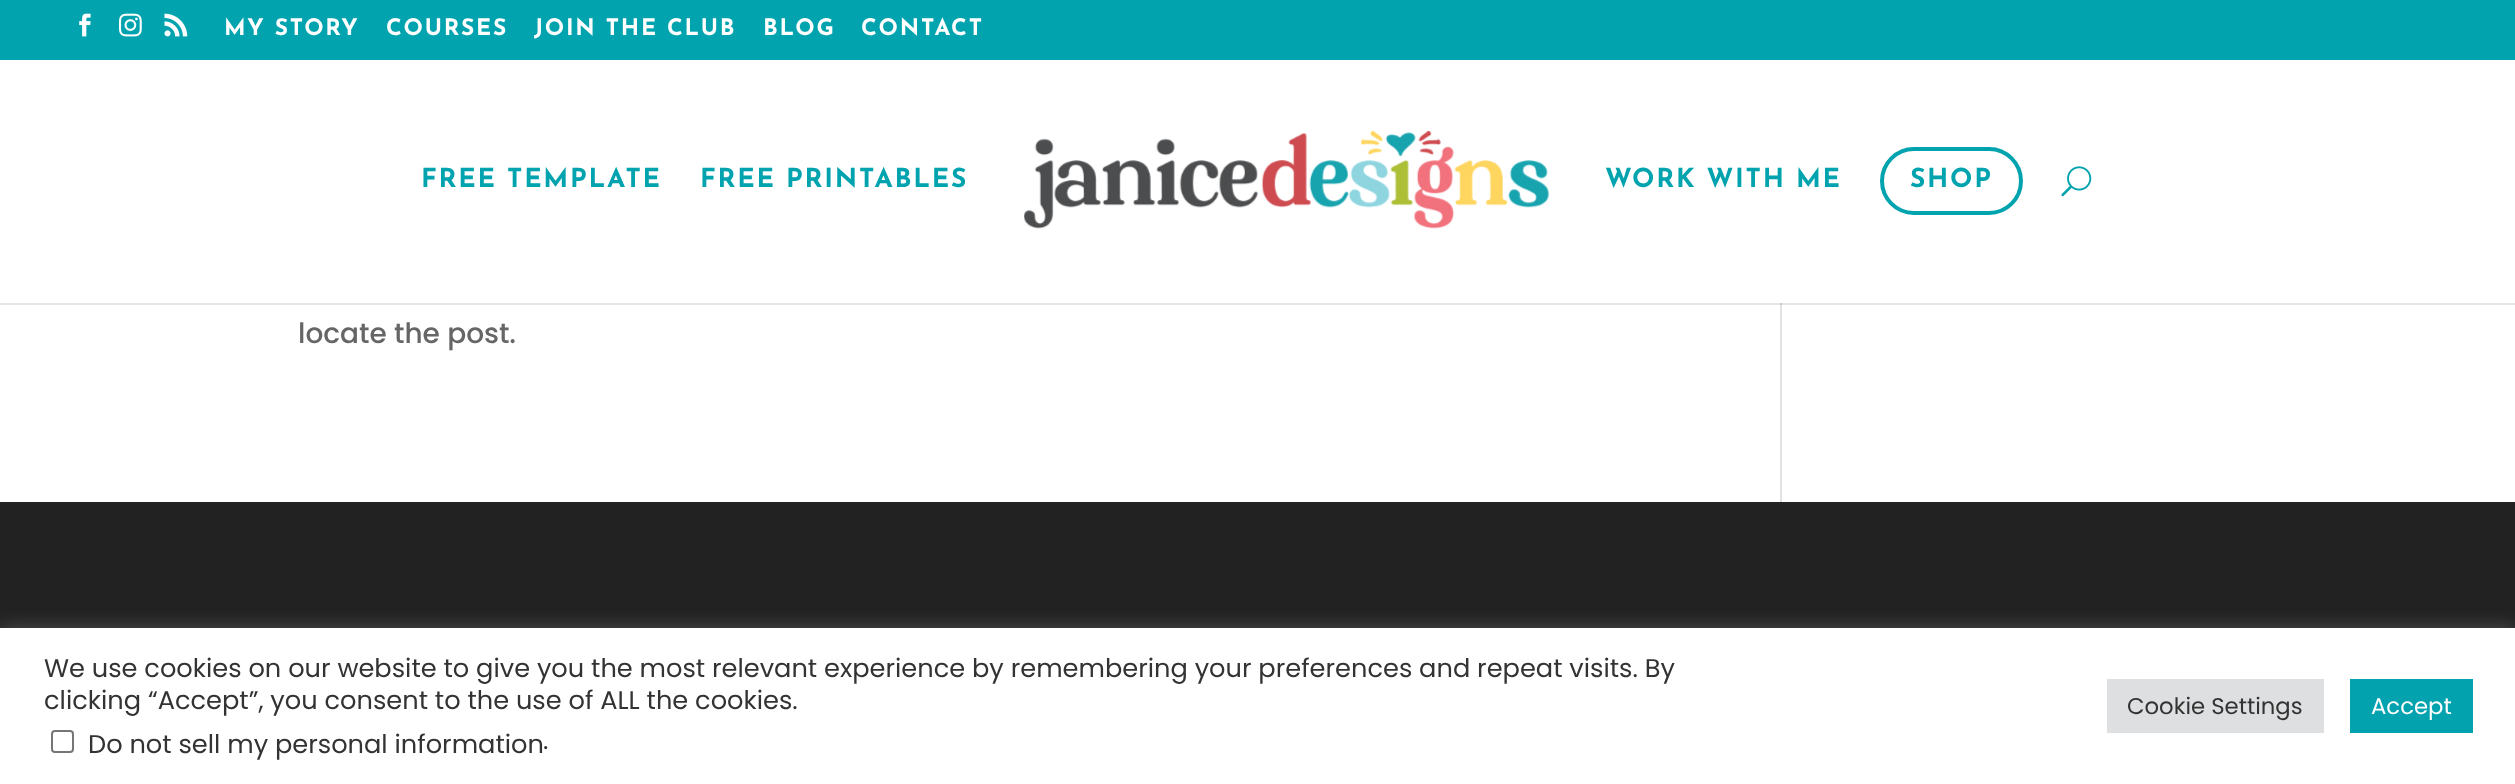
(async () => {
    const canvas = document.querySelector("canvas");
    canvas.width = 2515;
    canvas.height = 784;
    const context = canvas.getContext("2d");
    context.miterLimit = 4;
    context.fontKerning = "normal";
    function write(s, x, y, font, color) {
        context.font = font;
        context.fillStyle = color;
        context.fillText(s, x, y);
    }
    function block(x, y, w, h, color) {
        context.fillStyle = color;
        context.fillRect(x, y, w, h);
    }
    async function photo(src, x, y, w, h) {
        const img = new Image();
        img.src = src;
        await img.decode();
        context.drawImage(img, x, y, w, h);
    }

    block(0, 0, 2515, 784, "rgb(255, 255, 255)");
    block(0, 0, 2515, 60, "rgb(0, 163, 174)");
    await photo("media/1.png", 79, 13, 12, 24);
    await photo("media/2.png", 119, 13, 23, 24);
    await photo("media/3.png", 164, 13, 24, 24);
    context.letterSpacing = "1.75px";
    write("MY STORY", 224, 35, "100 22.75px Josefin Sans", "rgb(255, 255, 255)");
    write("COURSES", 386, 35, "100 22.75px Josefin Sans", "rgb(255, 255, 255)");
    write("JOIN THE CLUB", 534, 35, "100 22.75px Josefin Sans", "rgb(255, 255, 255)");
    write("BLOG", 763, 35, "100 22.75px Josefin Sans", "rgb(255, 255, 255)");
    write("CONTACT", 861, 35, "100 22.75px Josefin Sans", "rgb(255, 255, 255)");
    block(1780, 303, 2, 199, "rgb(226, 226, 226)");
    context.fillStyle = "rgba(0, 0, 0, 0.1)";
    context.beginPath();
    context.moveTo(0, 303);
    context.lineTo(0, 305);
    context.lineTo(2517, 305);
    context.lineTo(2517, 61);
    context.lineTo(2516, 61);
    context.lineTo(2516, 303);
    context.closePath();
    context.fill();
    write("FREE TEMPLATE", 421, 187, "100 26.25px Josefin Sans", "rgb(0, 163, 174)");
    write("FREE PRINTABLES", 700, 187, "100 26.25px Josefin Sans", "rgb(0, 163, 174)");
    await photo("media/4.png", 1024, 131, 525, 98);
    write("WORK WITH ME", 1605, 187, "100 26.25px Josefin Sans", "rgb(0, 163, 174)");
    context.beginPath();
    context.roundRect(1882, 149, 139, 64, 32);
    context.strokeStyle = "rgb(0, 163, 174)";
    context.lineWidth = 4;
    context.stroke();
    write("SHOP", 1910, 187, "100 26.25px Josefin Sans", "rgb(0, 163, 174)");
    await photo("media/5.png", 2061, 166, 31, 31);
    context.letterSpacing = "0px";
    write("locate the post.", 298, 343, "500 28px Poppins", "rgb(102, 102, 102)");
    block(0, 502, 2515, 126, "rgb(34, 34, 34)");
    context.fillStyle = "rgba(172, 171, 171, 0.3)";
    context.filter = "blur(9px)";
    context.beginPath();
    context.rect(0, 627, 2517, 155);
    context.fill();
    context.filter = "none";
    block(0, 628, 2515, 156, "rgb(255, 255, 255)");
    write("We use cookies on our website to give you the most relevant experience by remembering your preferences and repeat visits. By", 44, 677, "25.67px Poppins", "rgb(51, 51, 51)");
    write("clicking “Accept”, you consent to the use of ALL the cookies.", 44, 709, "25.67px Poppins", "rgb(51, 51, 51)");
    context.beginPath();
    context.roundRect(52, 731, 21, 21, 3);
    context.strokeStyle = "rgb(118, 118, 118)";
    context.lineWidth = 2;
    context.stroke();
    write("Do not sell my personal information", 88, 753, "25.67px Poppins", "rgb(51, 51, 51)");
    write(".", 543, 749, "25.67px Poppins", "rgb(51, 51, 51)");
    block(2107, 679, 217, 54, "rgb(222, 223, 224)");
    write("Cookie Settings", 2127, 714, "22.75px Poppins", "rgb(51, 51, 51)");
    block(2350, 679, 123, 54, "rgb(2, 162, 174)");
    write("Accept", 2371, 714, "22.75px Poppins", "rgb(255, 255, 255)");
})();
